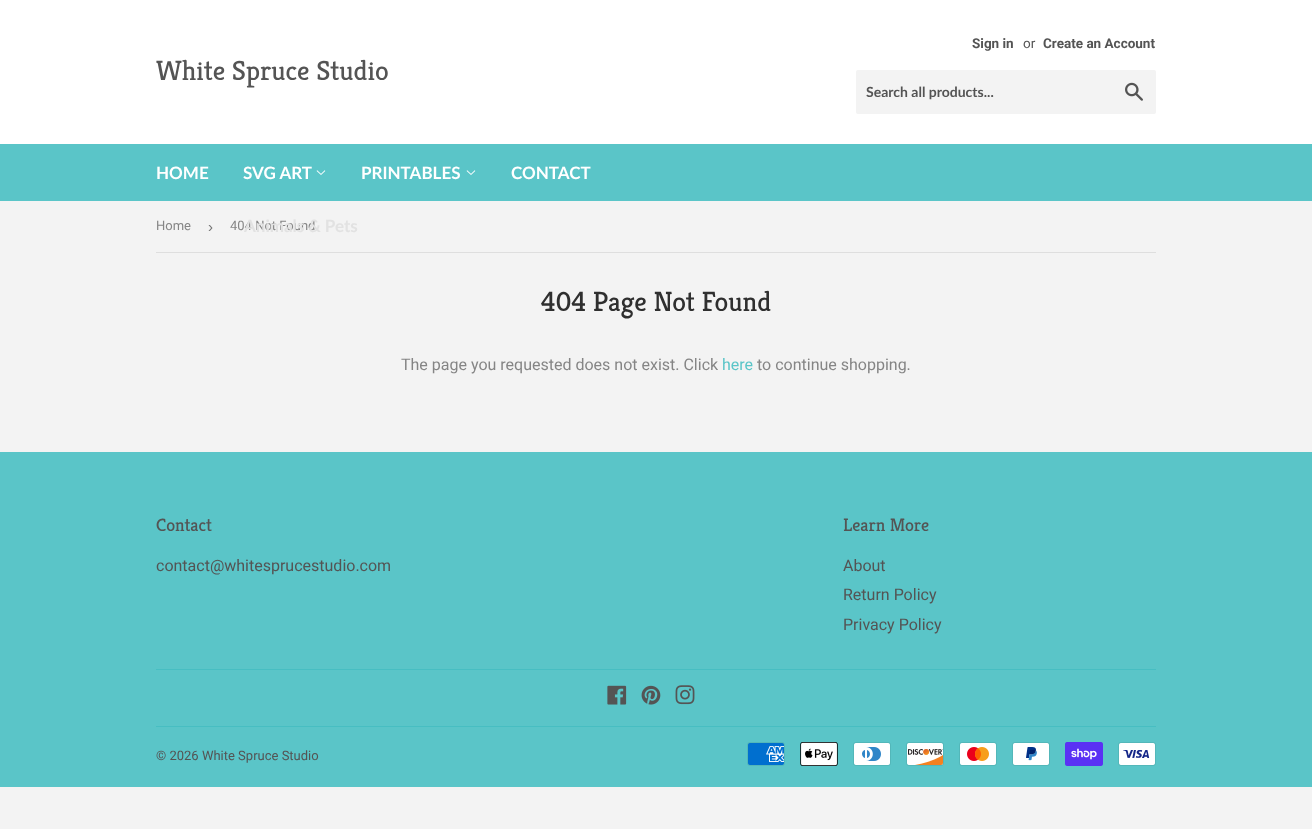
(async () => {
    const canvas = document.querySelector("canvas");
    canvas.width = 1312;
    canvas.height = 829;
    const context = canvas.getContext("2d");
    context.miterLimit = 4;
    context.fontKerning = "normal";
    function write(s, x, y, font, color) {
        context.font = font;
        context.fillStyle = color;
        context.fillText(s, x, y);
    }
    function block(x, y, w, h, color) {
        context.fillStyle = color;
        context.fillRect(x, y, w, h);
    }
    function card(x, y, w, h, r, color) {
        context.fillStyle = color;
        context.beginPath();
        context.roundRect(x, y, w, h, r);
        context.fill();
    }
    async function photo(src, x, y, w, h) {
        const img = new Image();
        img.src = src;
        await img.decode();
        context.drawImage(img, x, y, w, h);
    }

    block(0, 0, 1312, 829, "rgb(243, 243, 243)");
    block(0, 0, 1312, 144, "rgb(255, 255, 255)");
    write("White Spruce Studio", 156, 80, "300 27.75px Kreon", "rgb(84, 84, 84)");
    write("Sign in", 972, 48, "bold 13.5px Roboto", "rgb(84, 84, 84)");
    write("or", 1023, 48, "13.5px Roboto", "rgb(84, 84, 84)");
    write("Create an Account", 1043, 48, "bold 13.5px Roboto", "rgb(84, 84, 84)");
    card(856, 70, 300, 44, 2, "rgb(243, 243, 243)");
    write("Search all products...", 866, 97, "bold 14px Lato", "rgb(84, 84, 84)");
    await photo("media/1.png", 1125, 82, 18, 19);
    block(0, 144, 1312, 57, "rgb(90, 197, 200)");
    write("HOME", 156, 179, "bold 17px Lato", "rgb(255, 255, 255)");
    write("SVG ART", 243, 179, "bold 17px Lato", "rgb(255, 255, 255)");
    await photo("media/2.png", 316, 170, 10, 5);
    write("404 Not Found", 230, 230, "13px Roboto", "rgb(133, 133, 133)");
    write("Animals & Pets", 244, 232, "bold 17px Lato", "rgb(226, 226, 226)");
    write("PRINTABLES", 361, 179, "bold 17px Lato", "rgb(255, 255, 255)");
    await photo("media/2.png", 466, 170, 10, 5);
    write("CONTACT", 511, 179, "bold 17px Lato", "rgb(255, 255, 255)");
    block(156, 252, 1000, 1, "rgb(222, 222, 222)");
    write("Home", 156, 230, "13px Roboto", "rgb(133, 133, 133)");
    write("›", 208, 232, "15px Liberation Sans", "rgb(118, 118, 118)");
    write("404 Page Not Found", 541, 311, "300 27.75px Kreon", "rgb(47, 47, 47)");
    write("The page you requested does not exist. Click", 401, 370, "16px Roboto", "rgb(133, 133, 133)");
    write("here", 722, 370, "16px Roboto", "rgb(90, 197, 200)");
    write("to continue shopping.", 757, 370, "16px Roboto", "rgb(133, 133, 133)");
    block(0, 452, 1312, 335, "rgb(90, 197, 200)");
    write("Contact", 156, 531, "300 18px Kreon", "rgb(84, 84, 84)");
    write("contact@whitesprucestudio.com", 156, 571, "16px Roboto", "rgb(84, 84, 84)");
    write("Learn More", 843, 531, "300 18px Kreon", "rgb(84, 84, 84)");
    write("About", 843, 571, "16px Roboto", "rgb(84, 84, 84)");
    write("Return Policy", 843, 600, "16px Roboto", "rgb(84, 84, 84)");
    write("Privacy Policy", 843, 630, "16px Roboto", "rgb(84, 84, 84)");
    block(156, 669, 1000, 1, "rgb(71, 190, 194)");
    await photo("media/3.png", 607, 685, 20, 20);
    await photo("media/4.png", 641, 685, 20, 20);
    await photo("media/5.png", 675, 685, 20, 20);
    block(156, 726, 1000, 1, "rgb(71, 190, 194)");
    write("© 2026 White Spruce Studio", 156, 760, "13px Roboto", "rgb(84, 84, 84)");
    await photo("media/6.png", 747, 742, 38, 24);
    await photo("media/7.png", 800, 742, 38, 24);
    await photo("media/8.png", 853, 742, 38, 24);
    await photo("media/9.png", 906, 742, 38, 24);
    await photo("media/10.png", 959, 742, 38, 24);
    await photo("media/11.png", 1012, 742, 38, 24);
    await photo("media/12.png", 1065, 742, 38, 24);
    await photo("media/13.png", 1118, 742, 38, 24);
})();
